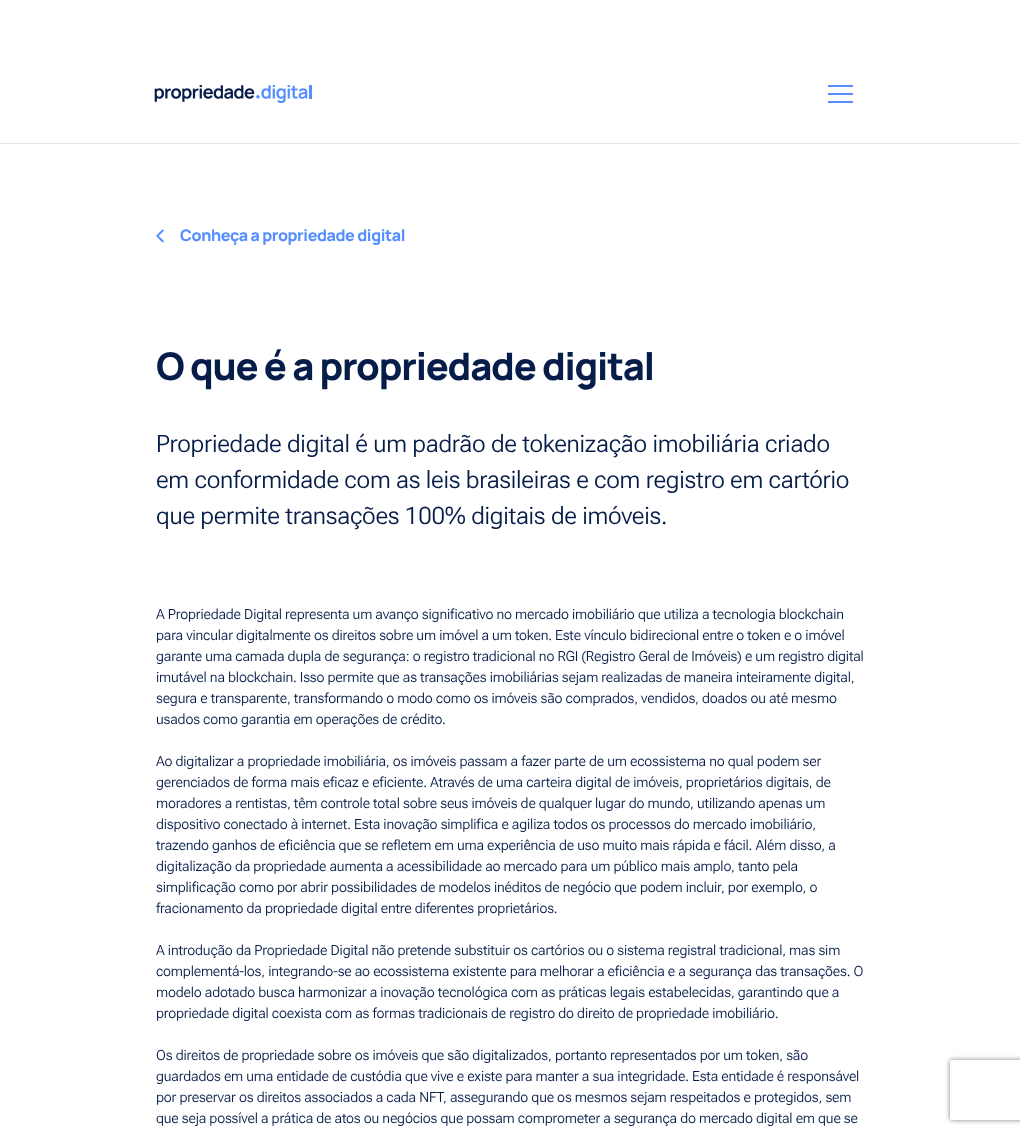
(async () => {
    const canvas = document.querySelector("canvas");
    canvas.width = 1020;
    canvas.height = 1134;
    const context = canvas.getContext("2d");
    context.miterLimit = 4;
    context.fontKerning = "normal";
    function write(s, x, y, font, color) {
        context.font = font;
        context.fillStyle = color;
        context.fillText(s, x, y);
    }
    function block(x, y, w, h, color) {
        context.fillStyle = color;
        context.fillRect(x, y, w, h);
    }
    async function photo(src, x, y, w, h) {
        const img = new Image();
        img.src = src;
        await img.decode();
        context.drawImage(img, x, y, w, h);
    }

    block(0, 0, 1020, 1134, "rgb(255, 255, 255)");
    block(0, 143, 1020, 1, "rgb(229, 231, 235)");
    await photo("media/1.png", 154, 85, 158, 18);
    block(828, 85, 25, 2, "rgb(85, 142, 255)");
    block(828, 93, 25, 2, "rgb(85, 142, 255)");
    block(828, 101, 25, 2, "rgb(85, 142, 255)");
    await photo("media/2.png", 156, 229, 8, 14);
    context.letterSpacing = "-0.4px";
    write("Conheça a propriedade digital", 180, 241, "800 16px Manrope", "rgb(85, 142, 255)");
    context.letterSpacing = "-1.2px";
    write("O que é a propriedade digital", 156, 380, "800 38px Manrope", "rgb(7, 29, 73)");
    context.letterSpacing = "-0.25px";
    write("Propriedade digital é um padrão de tokenização imobiliária criado", 156, 452, "300 24px Roboto Flex", "rgb(7, 29, 73)");
    write("em conformidade com as leis brasileiras e com registro em cartório", 156, 488, "300 24px Roboto Flex", "rgb(7, 29, 73)");
    write("que permite transações 100% digitais de imóveis.", 156, 524, "300 24px Roboto Flex", "rgb(7, 29, 73)");
    context.letterSpacing = "-0.16px";
    write("A Propriedade Digital representa um avanço significativo no mercado imobiliário que utiliza a tecnologia blockchain", 156, 619, "300 14px Roboto Flex", "rgb(7, 29, 73)");
    write("para vincular digitalmente os direitos sobre um imóvel a um token. Este vínculo bidirecional entre o token e o imóvel", 156, 640, "300 14px Roboto Flex", "rgb(7, 29, 73)");
    write("garante uma camada dupla de segurança: o registro tradicional no RGI (Registro Geral de Imóveis) e um registro digital", 156, 661, "300 14px Roboto Flex", "rgb(7, 29, 73)");
    write("imutável na blockchain. Isso permite que as transações imobiliárias sejam realizadas de maneira inteiramente digital,", 156, 682, "300 14px Roboto Flex", "rgb(7, 29, 73)");
    write("segura e transparente, transformando o modo como os imóveis são comprados, vendidos, doados ou até mesmo", 156, 703, "300 14px Roboto Flex", "rgb(7, 29, 73)");
    write("usados como garantia em operações de crédito.", 156, 724, "300 14px Roboto Flex", "rgb(7, 29, 73)");
    write("Ao digitalizar a propriedade imobiliária, os imóveis passam a fazer parte de um ecossistema no qual podem ser", 156, 766, "300 14px Roboto Flex", "rgb(7, 29, 73)");
    write("gerenciados de forma mais eficaz e eficiente. Através de uma carteira digital de imóveis, proprietários digitais, de", 156, 787, "300 14px Roboto Flex", "rgb(7, 29, 73)");
    write("moradores a rentistas, têm controle total sobre seus imóveis de qualquer lugar do mundo, utilizando apenas um", 156, 808, "300 14px Roboto Flex", "rgb(7, 29, 73)");
    write("dispositivo conectado à internet. Esta inovação simplifica e agiliza todos os processos do mercado imobiliário,", 156, 829, "300 14px Roboto Flex", "rgb(7, 29, 73)");
    write("trazendo ganhos de eficiência que se refletem em uma experiência de uso muito mais rápida e fácil. Além disso, a", 156, 850, "300 14px Roboto Flex", "rgb(7, 29, 73)");
    write("digitalização da propriedade aumenta a acessibilidade ao mercado para um público mais amplo, tanto pela", 156, 871, "300 14px Roboto Flex", "rgb(7, 29, 73)");
    write("simplificação como por abrir possibilidades de modelos inéditos de negócio que podem incluir, por exemplo, o", 156, 892, "300 14px Roboto Flex", "rgb(7, 29, 73)");
    write("fracionamento da propriedade digital entre diferentes proprietários.", 156, 913, "300 14px Roboto Flex", "rgb(7, 29, 73)");
    write("A introdução da Propriedade Digital não pretende substituir os cartórios ou o sistema registral tradicional, mas sim", 156, 955, "300 14px Roboto Flex", "rgb(7, 29, 73)");
    write("complementá-los, integrando-se ao ecossistema existente para melhorar a eficiência e a segurança das transações. O", 156, 976, "300 14px Roboto Flex", "rgb(7, 29, 73)");
    write("modelo adotado busca harmonizar a inovação tecnológica com as práticas legais estabelecidas, garantindo que a", 156, 997, "300 14px Roboto Flex", "rgb(7, 29, 73)");
    write("propriedade digital coexista com as formas tradicionais de registro do direito de propriedade imobiliário.", 156, 1018, "300 14px Roboto Flex", "rgb(7, 29, 73)");
    write("Os direitos de propriedade sobre os imóveis que são digitalizados, portanto representados por um token, são", 156, 1060, "300 14px Roboto Flex", "rgb(7, 29, 73)");
    write("guardados em uma entidade de custódia que vive e existe para manter a sua integridade. Esta entidade é responsável", 156, 1081, "300 14px Roboto Flex", "rgb(7, 29, 73)");
    write("por preservar os direitos associados a cada NFT, assegurando que os mesmos sejam respeitados e protegidos, sem", 156, 1102, "300 14px Roboto Flex", "rgb(7, 29, 73)");
    write("que seja possível a prática de atos ou negócios que possam comprometer a segurança do mercado digital em que se", 156, 1123, "300 14px Roboto Flex", "rgb(7, 29, 73)");
    context.save();
    context.beginPath();
    context.moveTo(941, 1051);
    context.lineTo(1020, 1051);
    context.lineTo(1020, 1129);
    context.lineTo(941, 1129);
    context.closePath();
    context.moveTo(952, 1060);
    context.lineTo(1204, 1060);
    context.bezierCurveTo(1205, 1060, 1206, 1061, 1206, 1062);
    context.lineTo(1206, 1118);
    context.bezierCurveTo(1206, 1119, 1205, 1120, 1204, 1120);
    context.lineTo(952, 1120);
    context.bezierCurveTo(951, 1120, 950, 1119, 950, 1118);
    context.lineTo(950, 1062);
    context.bezierCurveTo(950, 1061, 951, 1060, 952, 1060);
    context.closePath();
    context.clip("evenodd");
    context.fillStyle = "rgb(128, 128, 128)";
    context.filter = "blur(2.5px)";
    context.beginPath();
    context.roundRect(950, 1060, 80, 60, 2);
    context.fill();
    context.filter = "none";
    context.restore();
})();
